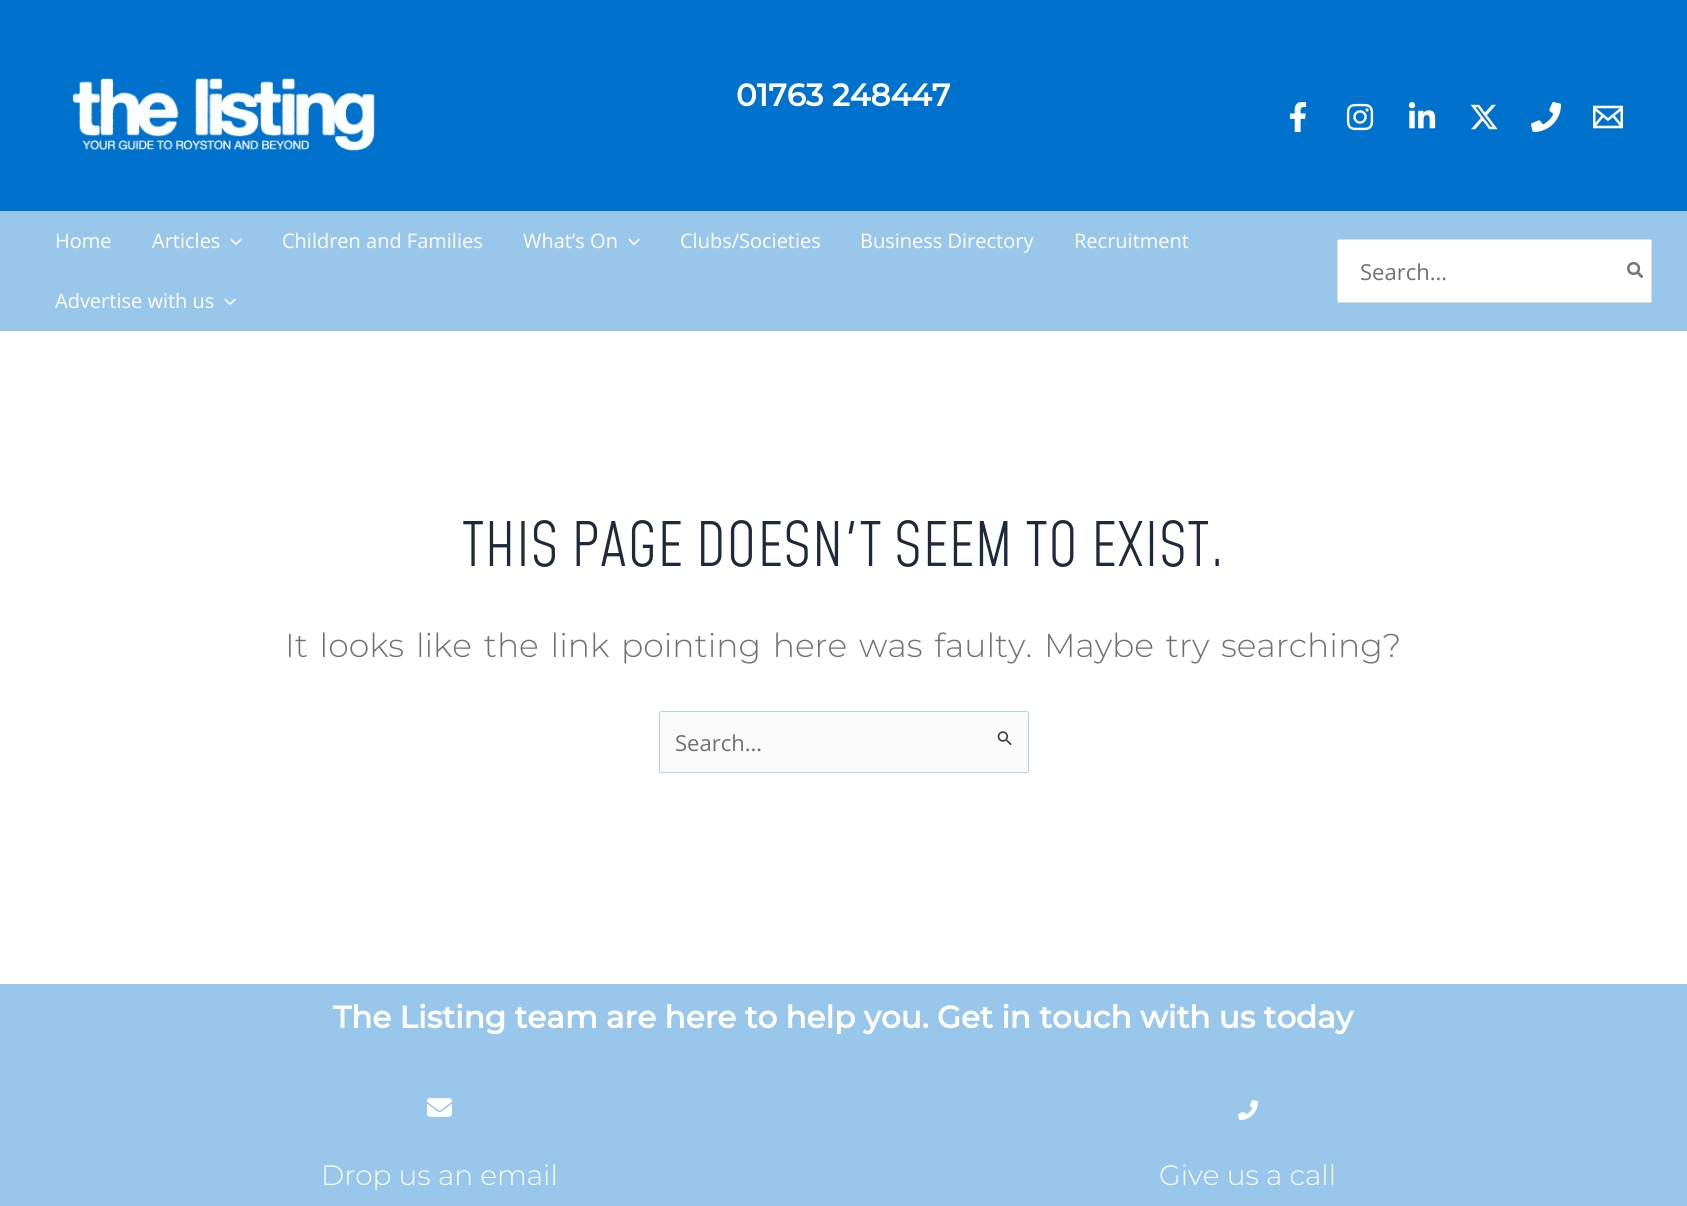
#include <cairo/cairo.h>
#include <math.h>
#include <stddef.h>

static cairo_t *cr;

static void use_color(int r, int g, int b) {
  cairo_set_source_rgb(cr, r / 255.0, g / 255.0, b / 255.0);
}

static void text(double x, double y, const char *s, const char *family, double size, int italic, int bold, int r, int g, int b) {
  cairo_select_font_face(cr, family, italic ? CAIRO_FONT_SLANT_ITALIC : CAIRO_FONT_SLANT_NORMAL,
    bold ? CAIRO_FONT_WEIGHT_BOLD : CAIRO_FONT_WEIGHT_NORMAL);
  cairo_set_font_size(cr, size);
  use_color(r, g, b);
  cairo_move_to(cr, x, y);
  cairo_show_text(cr, s);
}

static void spaced_text(double x, double y, const char *s, double letter, double word) {
  cairo_move_to(cr, x, y);
  while (*s) {
    char ch[5] = {0};
    int n = 0;
    do ch[n++] = *s++; while ((*s & 0xC0) == 0x80);
    cairo_show_text(cr, ch);
    cairo_rel_move_to(cr, letter + word * (*ch == ' '), 0);
  }
}

static void box(double x, double y, double w, double h, int r, int g, int b) {
  use_color(r, g, b);
  cairo_rectangle(cr, x, y, w, h);
  cairo_fill(cr);
}

static void round_rect(double x, double y, double w, double h, double r) {
  cairo_new_sub_path(cr);
  cairo_arc(cr, x + w - r, y + h - r, r, 0, M_PI / 2);
  cairo_arc(cr, x + r, y + h - r, r, M_PI / 2, M_PI);
  cairo_arc(cr, x + r, y + r, r, M_PI, 1.5 * M_PI);
  cairo_arc(cr, x + w - r, y + r, r, 1.5 * M_PI, 2 * M_PI);
  cairo_close_path(cr);
}

static void picture(const char *path, double x, double y, double w, double h) {
  cairo_surface_t *image = cairo_image_surface_create_from_png(path);
  cairo_save(cr);
  cairo_set_source_surface(cr, image, x, y);
  cairo_rectangle(cr, x, y, w, h);
  cairo_fill(cr);
  cairo_restore(cr);
  cairo_surface_destroy(image);
}

static void draw(void) {
  use_color(255, 255, 255);
  cairo_paint(cr);
  box(0, 0, 1687, 211, 0, 114, 206);
  picture("img_01.png", 72, 78, 304, 74);
  picture("img_02.png", 1289, 102, 18, 30);
  picture("img_03.png", 1346, 103, 28, 28);
  picture("img_04.png", 1408, 102, 28, 27);
  picture("img_05.png", 1470, 104, 28, 26);
  picture("img_06.png", 1531, 102, 30, 30);
  picture("img_07.png", 1593, 105, 30, 24);
  box(0, 211, 1687, 120, 153, 198, 235);
  picture("img_08.png", 230, 238, 12, 8);
  picture("img_08.png", 628, 238, 12, 8);
  picture("img_08.png", 224, 298, 12, 8);
  use_color(255, 255, 255);
  round_rect(1337.5, 239.5, 314, 63, 1.5);
  cairo_fill_preserve(cr);
  use_color(221, 221, 221);
  cairo_set_line_width(cr, 1);
  cairo_stroke(cr);
  picture("img_09.png", 1627, 261, 16, 17);
  use_color(250, 250, 250);
  round_rect(659.5, 711.5, 369, 61, 1.5);
  cairo_fill_preserve(cr);
  use_color(178, 212, 240);
  cairo_stroke(cr);
  picture("img_10.png", 997, 731, 15, 15);
  box(0, 984, 1687, 222, 153, 198, 235);
  picture("img_11.png", 427, 1098, 25, 19);
  picture("img_12.png", 1238, 1100, 20, 20);
  text(736, 106, "01763 248447", "Montserrat", 31, 0, 1, 255, 255, 255);
  text(55, 248, "Home", "Open Sans", 20, 0, 0, 255, 255, 255);
  text(152, 248, "Articles", "Open Sans", 20, 0, 0, 255, 255, 255);
  text(282, 248, "Children and Families", "Open Sans", 20, 0, 0, 255, 255, 255);
  text(523, 248, "What’s On", "Open Sans", 20, 0, 0, 255, 255, 255);
  text(680, 248, "Clubs/Societies", "Open Sans", 20, 0, 0, 255, 255, 255);
  text(860, 248, "Business Directory", "Open Sans", 20, 0, 0, 255, 255, 255);
  text(1074, 248, "Recruitment", "Open Sans", 20, 0, 0, 255, 255, 255);
  text(55, 308, "Advertise with us", "Open Sans", 20, 0, 0, 255, 255, 255);
  text(1360, 280, "Search...", "Open Sans", 22, 0, 0, 112, 113, 115);
  text(462, 566, "THIS PAGE DOESN'T SEEM TO EXIST.", "Mohave Light", 60, 0, 0, 30, 41, 59);
  cairo_select_font_face(cr, "Montserrat Light", CAIRO_FONT_SLANT_NORMAL, CAIRO_FONT_WEIGHT_NORMAL);
  cairo_set_font_size(cr, 33);
  use_color(112, 113, 115);
  spaced_text(285, 657, "It looks like the link pointing here was faulty. Maybe try searching?", 0, 3.25);
  text(675, 751, "Search...", "Open Sans", 22, 0, 0, 112, 113, 115);
  text(333, 1028, "The Listing team are here to help you. Get in touch with us today", "Montserrat", 31, 0, 1, 255, 255, 255);
  text(321, 1185, "Drop us an email", "Montserrat Light", 28, 0, 0, 255, 255, 255);
  text(1159, 1185, "Give us a call", "Montserrat Light", 28, 0, 0, 255, 255, 255);
}

int main(void) {
  cairo_surface_t *surface = cairo_image_surface_create(CAIRO_FORMAT_RGB24, 1687, 1206);
  cr = cairo_create(surface);
  cairo_font_options_t *options = cairo_font_options_create();
  cairo_font_options_set_hint_metrics(options, CAIRO_HINT_METRICS_OFF);
  cairo_font_options_set_hint_style(options, CAIRO_HINT_STYLE_NONE);
  cairo_set_font_options(cr, options);
  cairo_set_miter_limit(cr, 4);
  draw();
  cairo_surface_write_to_png(surface, "out.png");
  cairo_font_options_destroy(options);
  cairo_destroy(cr);
  cairo_surface_destroy(surface);
  return 0;
}
